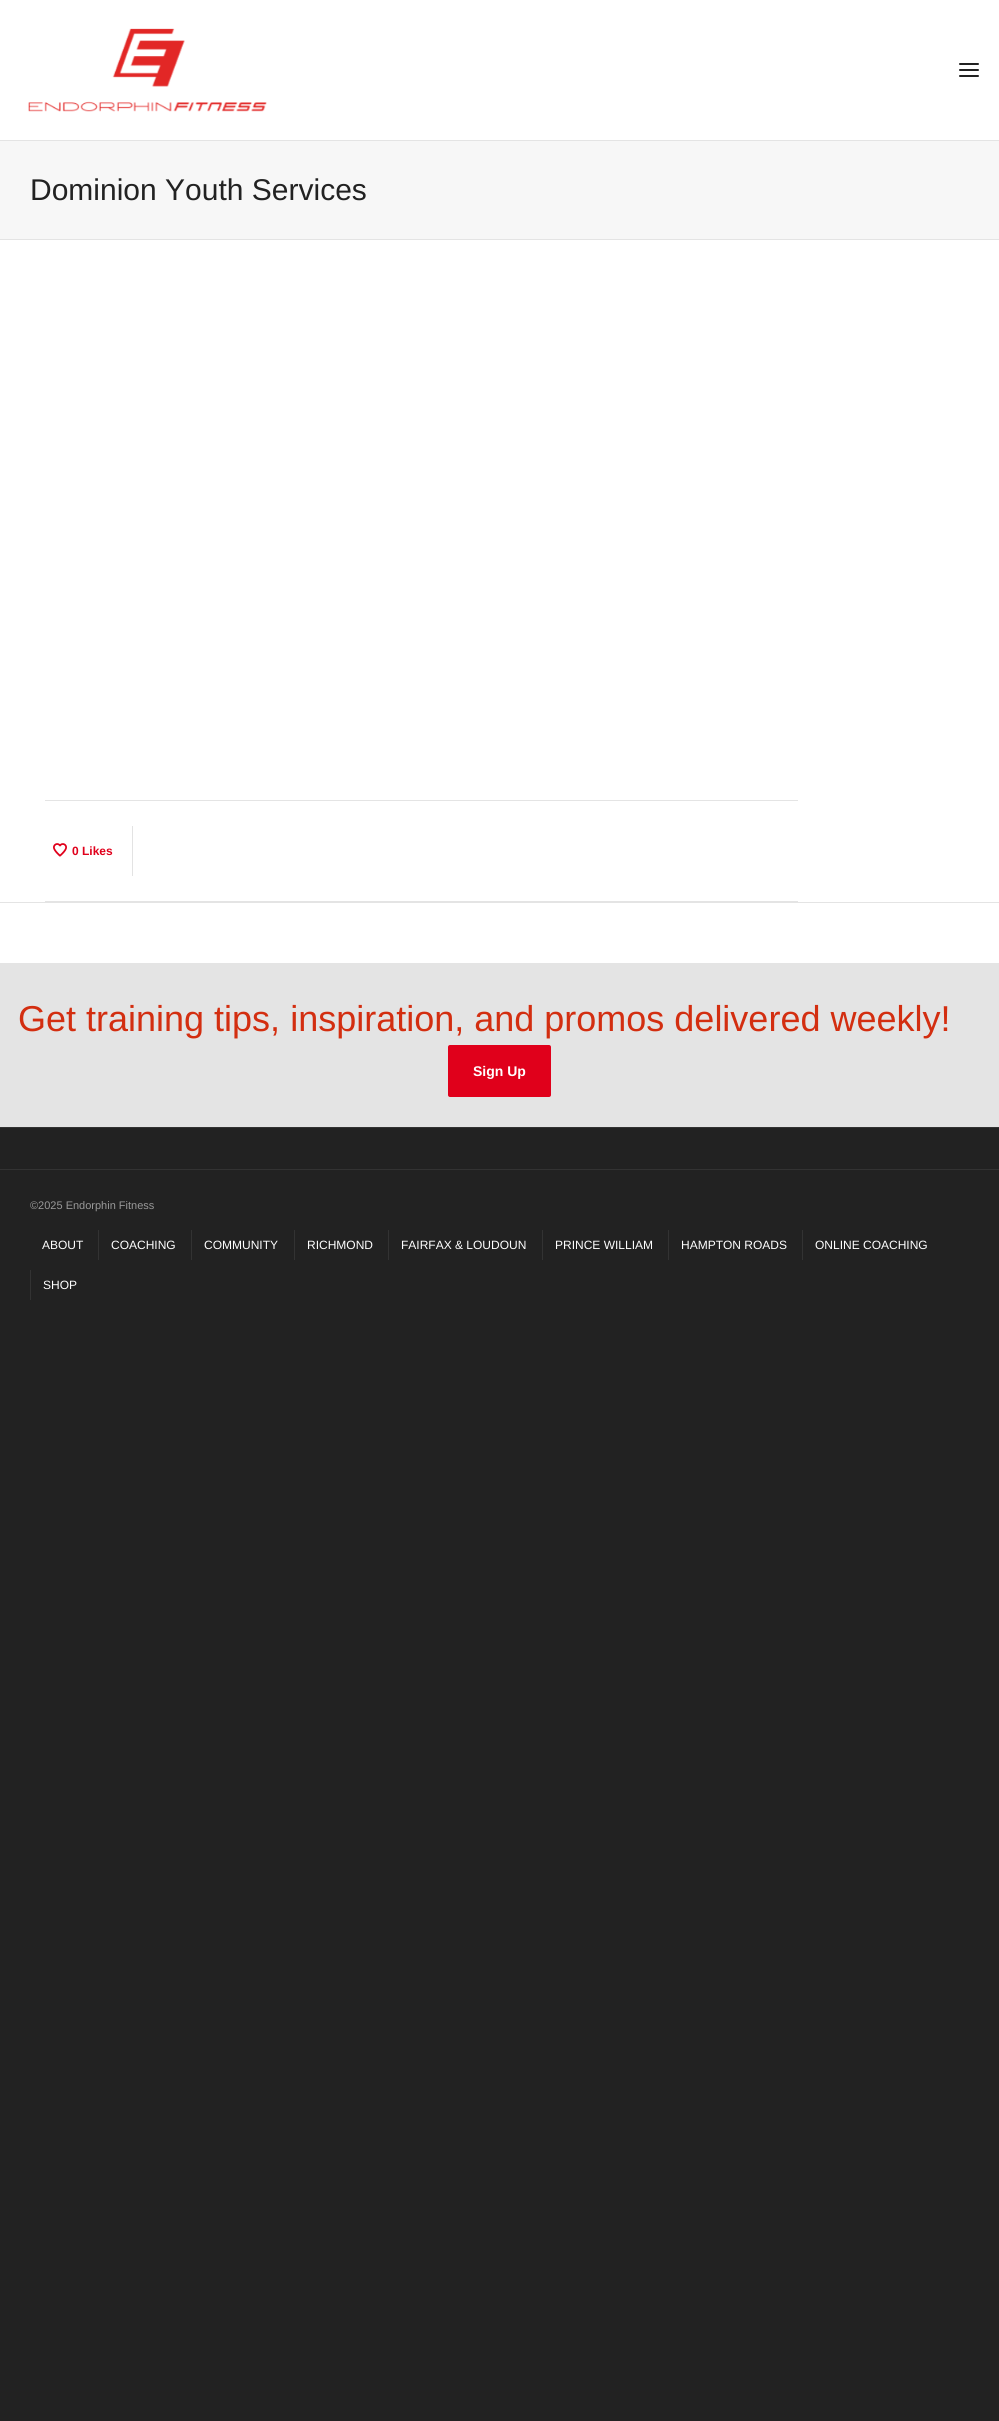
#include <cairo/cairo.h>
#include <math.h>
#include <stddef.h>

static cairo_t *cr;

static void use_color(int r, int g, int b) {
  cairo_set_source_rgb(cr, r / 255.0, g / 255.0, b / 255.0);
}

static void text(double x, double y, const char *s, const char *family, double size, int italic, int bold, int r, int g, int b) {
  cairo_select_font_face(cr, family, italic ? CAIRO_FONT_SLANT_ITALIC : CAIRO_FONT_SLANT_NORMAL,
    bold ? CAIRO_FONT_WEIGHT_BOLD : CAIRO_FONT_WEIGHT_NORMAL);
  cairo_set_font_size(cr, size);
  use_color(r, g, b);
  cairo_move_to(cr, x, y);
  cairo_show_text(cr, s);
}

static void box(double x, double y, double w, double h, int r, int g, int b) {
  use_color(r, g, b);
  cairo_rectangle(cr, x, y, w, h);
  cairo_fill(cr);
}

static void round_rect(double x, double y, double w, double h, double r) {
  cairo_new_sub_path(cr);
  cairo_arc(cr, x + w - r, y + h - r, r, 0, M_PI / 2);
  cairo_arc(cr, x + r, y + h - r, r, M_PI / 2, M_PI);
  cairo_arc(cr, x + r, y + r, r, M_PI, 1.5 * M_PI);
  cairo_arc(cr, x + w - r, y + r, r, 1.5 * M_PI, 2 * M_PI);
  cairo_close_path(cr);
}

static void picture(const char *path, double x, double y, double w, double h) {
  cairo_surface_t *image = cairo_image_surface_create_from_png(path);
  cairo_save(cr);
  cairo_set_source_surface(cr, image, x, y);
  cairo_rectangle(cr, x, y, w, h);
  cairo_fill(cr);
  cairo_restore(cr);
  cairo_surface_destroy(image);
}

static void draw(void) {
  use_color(34, 34, 34);
  cairo_paint(cr);
  box(0, 0, 999, 140, 255, 255, 255);
  box(0, 140, 999, 1, 228, 228, 228);
  picture("img_01.png", 28, 28, 239, 84);
  use_color(34, 34, 34);
  round_rect(959, 69, 20, 2, 1);
  cairo_fill(cr);
  round_rect(959, 63, 20, 2, 1);
  cairo_fill(cr);
  round_rect(959, 75, 20, 2, 1);
  cairo_fill(cr);
  box(0, 141, 999, 98, 247, 247, 247);
  box(0, 239, 999, 1, 228, 228, 228);
  box(0, 240, 999, 723, 255, 255, 255);
  box(45, 800, 753, 1, 228, 228, 228);
  box(45, 901, 753, 1, 228, 228, 228);
  picture("img_02.png", 53, 843, 14, 14);
  box(132, 826, 1, 50, 227, 227, 227);
  box(0, 902, 999, 1, 228, 228, 228);
  box(0, 963, 999, 164, 228, 228, 228);
  use_color(224, 0, 27);
  round_rect(448, 1045, 103, 52, 2);
  cairo_fill(cr);
  box(0, 1127, 999, 1, 51, 51, 51);
  box(0, 1169, 999, 1, 51, 51, 51);
  box(98, 1230, 1, 30, 51, 51, 51);
  box(191, 1230, 1, 30, 51, 51, 51);
  box(294, 1230, 1, 30, 51, 51, 51);
  box(388, 1230, 1, 30, 51, 51, 51);
  box(542, 1230, 1, 30, 51, 51, 51);
  box(668, 1230, 1, 30, 51, 51, 51);
  box(802, 1230, 1, 30, 51, 51, 51);
  box(30, 1270, 1, 30, 51, 51, 51);
  text(30, 200, "Dominion Youth Services", "Liberation Sans", 30, 0, 0, 34, 34, 34);
  text(72, 855, "0 Likes", "Liberation Sans", 12, 0, 1, 224, 0, 27);
  text(18, 1031, "Get training tips, inspiration, and promos delivered weekly!", "Liberation Sans", 36, 0, 0, 211, 46, 16);
  text(473, 1076, "Sign Up", "Liberation Sans", 14, 0, 1, 255, 255, 255);
  text(30, 1209, "©2025 Endorphin Fitness", "Liberation Sans", 11, 0, 0, 153, 153, 153);
  text(42, 1249, "ABOUT", "Liberation Sans", 12, 0, 0, 255, 255, 255);
  text(111, 1249, "COACHING", "Liberation Sans", 12, 0, 0, 255, 255, 255);
  text(204, 1249, "COMMUNITY", "Liberation Sans", 12, 0, 0, 255, 255, 255);
  text(307, 1249, "RICHMOND", "Liberation Sans", 12, 0, 0, 255, 255, 255);
  text(401, 1249, "FAIRFAX & LOUDOUN", "Liberation Sans", 12, 0, 0, 255, 255, 255);
  text(555, 1249, "PRINCE WILLIAM", "Liberation Sans", 12, 0, 0, 255, 255, 255);
  text(681, 1249, "HAMPTON ROADS", "Liberation Sans", 12, 0, 0, 255, 255, 255);
  text(815, 1249, "ONLINE COACHING", "Liberation Sans", 12, 0, 0, 255, 255, 255);
  text(43, 1289, "SHOP", "Liberation Sans", 12, 0, 0, 255, 255, 255);
}

int main(void) {
  cairo_surface_t *surface = cairo_image_surface_create(CAIRO_FORMAT_RGB24, 999, 2421);
  cr = cairo_create(surface);
  cairo_font_options_t *options = cairo_font_options_create();
  cairo_font_options_set_hint_metrics(options, CAIRO_HINT_METRICS_OFF);
  cairo_font_options_set_hint_style(options, CAIRO_HINT_STYLE_NONE);
  cairo_set_font_options(cr, options);
  cairo_set_miter_limit(cr, 4);
  draw();
  cairo_surface_write_to_png(surface, "out.png");
  cairo_font_options_destroy(options);
  cairo_destroy(cr);
  cairo_surface_destroy(surface);
  return 0;
}
